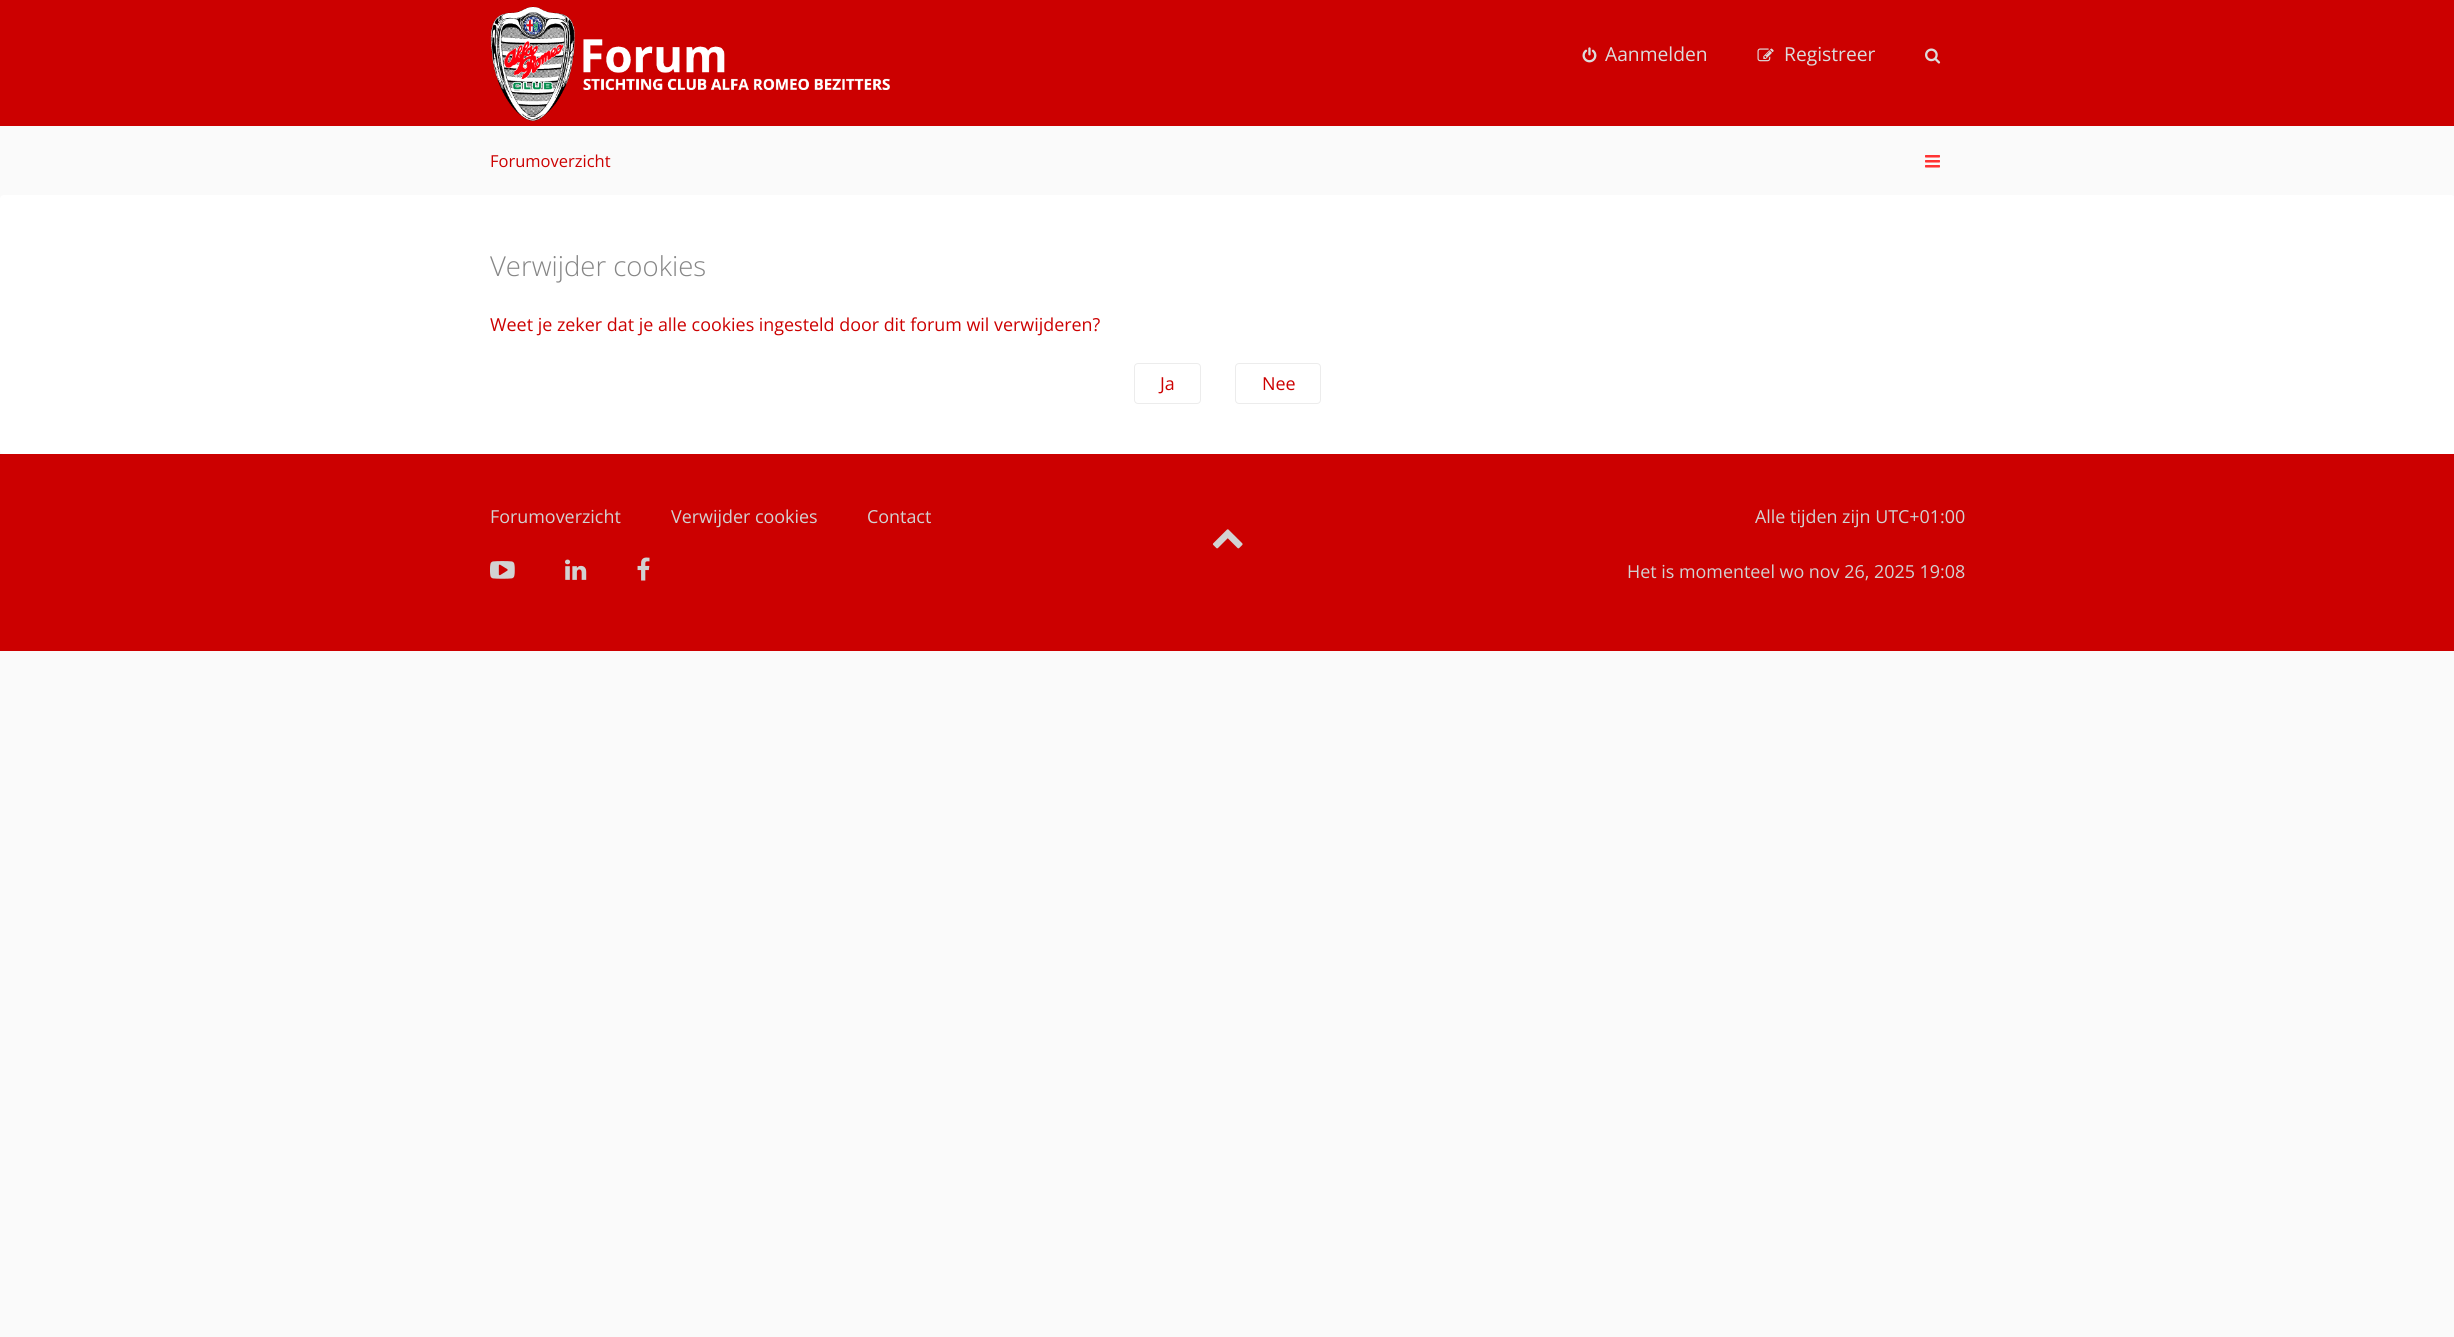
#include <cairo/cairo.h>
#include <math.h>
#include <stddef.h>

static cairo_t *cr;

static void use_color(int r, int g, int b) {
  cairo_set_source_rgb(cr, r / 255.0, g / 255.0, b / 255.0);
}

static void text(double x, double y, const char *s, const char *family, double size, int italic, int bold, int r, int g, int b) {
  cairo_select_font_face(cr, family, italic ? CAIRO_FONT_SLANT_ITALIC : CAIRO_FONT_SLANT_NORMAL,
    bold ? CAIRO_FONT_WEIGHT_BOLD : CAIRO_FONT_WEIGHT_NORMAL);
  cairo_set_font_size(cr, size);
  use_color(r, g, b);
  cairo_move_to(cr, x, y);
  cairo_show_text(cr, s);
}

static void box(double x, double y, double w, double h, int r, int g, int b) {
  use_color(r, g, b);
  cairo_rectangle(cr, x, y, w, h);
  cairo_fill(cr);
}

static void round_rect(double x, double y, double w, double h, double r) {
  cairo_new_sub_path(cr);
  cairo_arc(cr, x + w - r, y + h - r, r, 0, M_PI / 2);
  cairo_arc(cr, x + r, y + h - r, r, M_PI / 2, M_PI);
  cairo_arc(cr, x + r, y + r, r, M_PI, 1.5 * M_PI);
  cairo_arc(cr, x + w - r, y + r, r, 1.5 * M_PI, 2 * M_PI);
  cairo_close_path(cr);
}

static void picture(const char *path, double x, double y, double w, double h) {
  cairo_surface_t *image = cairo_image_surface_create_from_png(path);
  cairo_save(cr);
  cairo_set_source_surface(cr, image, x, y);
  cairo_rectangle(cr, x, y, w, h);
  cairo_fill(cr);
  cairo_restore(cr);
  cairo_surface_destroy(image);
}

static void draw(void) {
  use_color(250, 250, 250);
  cairo_paint(cr);
  box(0, 0, 2454, 126, 204, 0, 0);
  picture("img_01.png", 490, 6, 400, 116);
  picture("img_02.png", 1582, 47, 15, 16);
  picture("img_03.png", 1757, 48, 17, 14);
  picture("img_04.png", 1925, 48, 16, 16);
  picture("img_05.png", 1925, 155, 15, 13);
  use_color(255, 255, 255);
  round_rect(0, 195, 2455, 259, 4);
  cairo_fill(cr);
  round_rect(1134.5, 363.5, 66, 40, 3.5);
  use_color(236, 236, 236);
  cairo_set_line_width(cr, 1);
  cairo_stroke(cr);
  round_rect(1235.5, 363.5, 85, 40, 3.5);
  cairo_stroke(cr);
  box(0, 454, 2454, 197, 204, 0, 0);
  picture("img_06.png", 490, 561, 25, 18);
  picture("img_07.png", 565, 559, 22, 21);
  picture("img_08.png", 637, 557, 13, 24);
  picture("img_09.png", 1212, 529, 31, 20);
  text(1605, 61, "Aanmelden", "Open Sans", 19.25, 0, 0, 220, 220, 220);
  text(1784, 61, "Registreer", "Open Sans", 19.25, 0, 0, 220, 220, 220);
  text(490, 167, "Forumoverzicht", "Open Sans", 16.5, 0, 0, 204, 0, 0);
  text(490, 276, "Verwijder cookies", "Open Sans Light", 27.5, 0, 0, 134, 134, 134);
  text(490, 331, "Weet je zeker dat je alle cookies ingesteld door dit forum wil verwijderen?", "Open Sans", 17.9, 0, 0, 204, 0, 0);
  text(1160, 390, "Ja", "Open Sans", 17.9, 0, 0, 204, 0, 0);
  text(1262, 390, "Nee", "Open Sans", 17.9, 0, 0, 204, 0, 0);
  text(490, 523, "Forumoverzicht", "Open Sans", 17.9, 0, 0, 210, 210, 210);
  text(671, 523, "Verwijder cookies", "Open Sans", 17.9, 0, 0, 210, 210, 210);
  text(867, 523, "Contact", "Open Sans", 17.9, 0, 0, 210, 210, 210);
  text(1755, 523, "Alle tijden zijn UTC+01:00", "Open Sans", 17.9, 0, 0, 210, 210, 210);
  text(1627, 578, "Het is momenteel wo nov 26, 2025 19:08", "Open Sans", 17.9, 0, 0, 210, 210, 210);
}

int main(void) {
  cairo_surface_t *surface = cairo_image_surface_create(CAIRO_FORMAT_RGB24, 2454, 1337);
  cr = cairo_create(surface);
  cairo_font_options_t *options = cairo_font_options_create();
  cairo_font_options_set_hint_metrics(options, CAIRO_HINT_METRICS_OFF);
  cairo_font_options_set_hint_style(options, CAIRO_HINT_STYLE_NONE);
  cairo_set_font_options(cr, options);
  cairo_set_miter_limit(cr, 4);
  draw();
  cairo_surface_write_to_png(surface, "out.png");
  cairo_font_options_destroy(options);
  cairo_destroy(cr);
  cairo_surface_destroy(surface);
  return 0;
}
